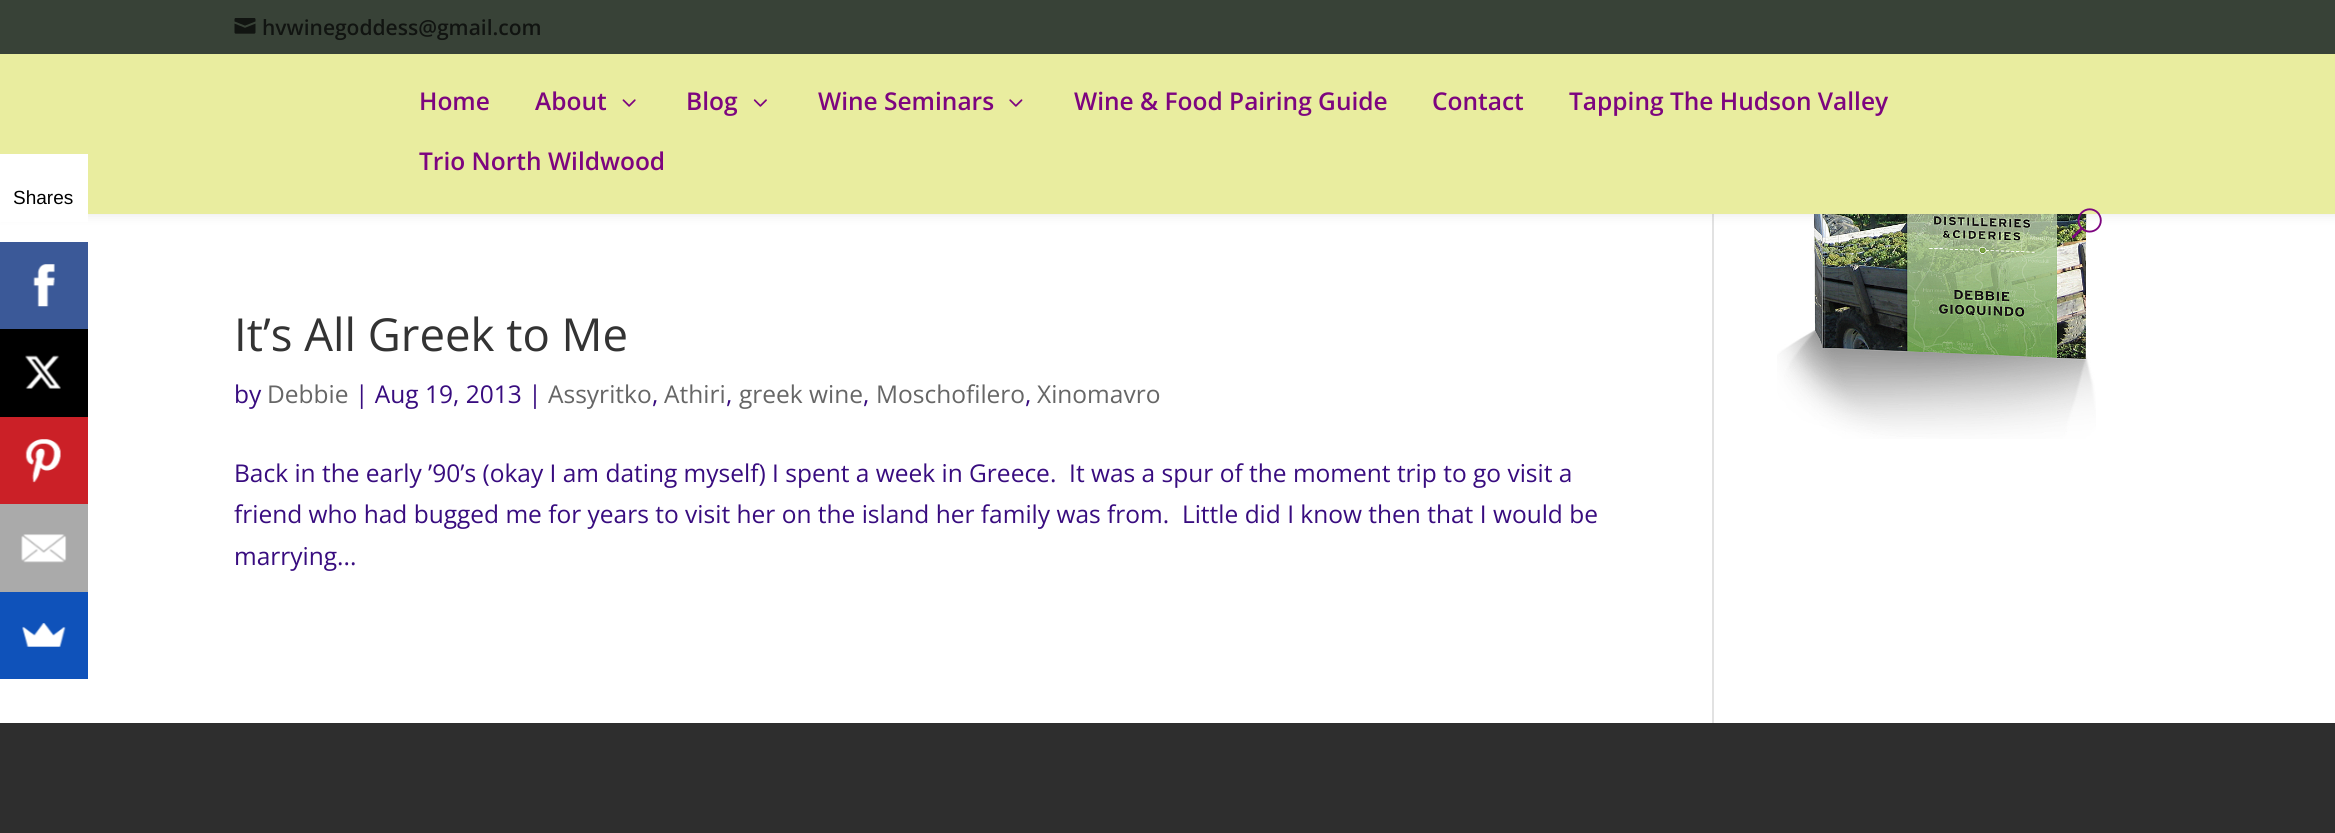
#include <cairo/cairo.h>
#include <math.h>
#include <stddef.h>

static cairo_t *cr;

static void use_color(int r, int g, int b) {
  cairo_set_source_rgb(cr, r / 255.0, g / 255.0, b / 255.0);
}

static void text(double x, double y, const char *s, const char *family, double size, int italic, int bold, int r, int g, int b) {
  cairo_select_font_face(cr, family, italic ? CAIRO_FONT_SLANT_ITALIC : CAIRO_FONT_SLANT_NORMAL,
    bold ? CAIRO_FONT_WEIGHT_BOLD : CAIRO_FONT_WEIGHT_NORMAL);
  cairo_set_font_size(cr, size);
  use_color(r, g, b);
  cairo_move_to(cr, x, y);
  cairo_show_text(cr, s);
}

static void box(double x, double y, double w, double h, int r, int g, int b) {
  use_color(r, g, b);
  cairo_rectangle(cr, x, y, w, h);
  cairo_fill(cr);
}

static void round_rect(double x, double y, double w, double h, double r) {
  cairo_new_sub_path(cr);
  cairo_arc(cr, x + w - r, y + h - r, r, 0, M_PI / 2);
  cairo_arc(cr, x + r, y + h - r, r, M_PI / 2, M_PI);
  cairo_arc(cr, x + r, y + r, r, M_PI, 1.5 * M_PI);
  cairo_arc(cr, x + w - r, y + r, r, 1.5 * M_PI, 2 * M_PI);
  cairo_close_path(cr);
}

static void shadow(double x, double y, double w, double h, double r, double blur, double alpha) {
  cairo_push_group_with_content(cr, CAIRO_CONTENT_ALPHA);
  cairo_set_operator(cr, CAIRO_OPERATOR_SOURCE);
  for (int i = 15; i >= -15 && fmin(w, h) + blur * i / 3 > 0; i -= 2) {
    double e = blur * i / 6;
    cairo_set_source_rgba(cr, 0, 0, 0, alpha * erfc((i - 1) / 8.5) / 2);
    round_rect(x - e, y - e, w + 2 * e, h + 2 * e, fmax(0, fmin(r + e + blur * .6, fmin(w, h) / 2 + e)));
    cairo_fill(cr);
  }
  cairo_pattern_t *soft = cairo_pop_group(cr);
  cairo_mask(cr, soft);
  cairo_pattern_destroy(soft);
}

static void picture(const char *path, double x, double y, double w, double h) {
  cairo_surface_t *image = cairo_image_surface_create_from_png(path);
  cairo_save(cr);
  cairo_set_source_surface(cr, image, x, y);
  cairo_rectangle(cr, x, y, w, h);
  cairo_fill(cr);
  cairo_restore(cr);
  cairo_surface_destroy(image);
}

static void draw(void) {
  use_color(255, 255, 255);
  cairo_paint(cr);
  picture("img_11.png", 1777, 214, 319, 225);
  box(1712, 214, 2, 509, 226, 226, 226);
  use_color(0, 0, 0);
  shadow(0, 54, 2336, 160, 0, 6, 0.1);
  box(0, 54, 2335, 160, 233, 237, 159);
  box(0, 154, 88, 68, 255, 255, 255);
  box(0, 242, 88, 87, 59, 89, 152);
  picture("img_01.png", 33, 264, 22, 43);
  box(0, 329, 88, 88, 0, 0, 0);
  picture("img_02.png", 25, 355, 36, 34);
  box(0, 417, 88, 87, 203, 32, 39);
  picture("img_03.png", 25, 439, 36, 44);
  box(0, 504, 88, 88, 170, 170, 170);
  picture("img_04.png", 21, 534, 46, 29);
  box(0, 592, 88, 87, 15, 82, 186);
  picture("img_05.png", 22, 623, 44, 24);
  box(0, 0, 2335, 54, 56, 66, 55);
  picture("img_06.png", 234, 18, 22, 16);
  picture("img_07.png", 622, 99, 14, 8);
  picture("img_08.png", 753, 99, 14, 8);
  picture("img_09.png", 1009, 99, 14, 8);
  picture("img_10.png", 2071, 208, 31, 31);
  box(0, 723, 2335, 110, 46, 46, 46);
  text(13, 204, "Shares", "Liberation Sans", 19, 0, 0, 0, 0, 0);
  text(262, 35, "hvwinegoddess@gmail.com", "Open Sans SemiBold", 21, 0, 0, 17, 20, 17);
  text(419, 110, "Home", "Open Sans SemiBold", 24.5, 0, 0, 125, 5, 127);
  text(535, 110, "About", "Open Sans SemiBold", 24.5, 0, 0, 125, 5, 127);
  text(686, 110, "Blog", "Open Sans SemiBold", 24.5, 0, 0, 125, 5, 127);
  text(818, 110, "Wine Seminars", "Open Sans SemiBold", 24.5, 0, 0, 125, 5, 127);
  text(1074, 110, "Wine & Food Pairing Guide", "Open Sans SemiBold", 24.5, 0, 0, 125, 5, 127);
  text(1432, 110, "Contact", "Open Sans SemiBold", 24.5, 0, 0, 125, 5, 127);
  text(1569, 110, "Tapping The Hudson Valley", "Open Sans SemiBold", 24.5, 0, 0, 125, 5, 127);
  text(419, 170, "Trio North Wildwood", "Open Sans SemiBold", 24.5, 0, 0, 125, 5, 127);
  text(234, 351, "It’s All Greek to Me", "Open Sans", 45.5, 0, 0, 51, 51, 51);
  text(234, 403, "by", "Open Sans", 24.5, 0, 0, 56, 12, 127);
  text(267, 403, "Debbie", "Open Sans", 24.5, 0, 0, 102, 102, 102);
  text(355, 403, "| Aug 19, 2013 |", "Open Sans", 24.5, 0, 0, 56, 12, 127);
  text(548, 403, "Assyritko", "Open Sans", 24.5, 0, 0, 102, 102, 102);
  text(652, 403, ",", "Open Sans", 24.5, 0, 0, 56, 12, 127);
  text(664, 403, "Athiri", "Open Sans", 24.5, 0, 0, 102, 102, 102);
  text(726, 403, ",", "Open Sans", 24.5, 0, 0, 56, 12, 127);
  text(739, 403, "greek wine", "Open Sans", 24.5, 0, 0, 102, 102, 102);
  text(863, 403, ",", "Open Sans", 24.5, 0, 0, 56, 12, 127);
  text(876, 403, "Moschofilero", "Open Sans", 24.5, 0, 0, 102, 102, 102);
  text(1025, 403, ",", "Open Sans", 24.5, 0, 0, 56, 12, 127);
  text(1037, 403, "Xinomavro", "Open Sans", 24.5, 0, 0, 102, 102, 102);
  text(234, 482, "Back in the early ’90’s (okay I am dating myself) I spent a week in Greece.  It was a spur of the moment trip to go visit a", "Open Sans", 24.5, 0, 0, 56, 12, 127);
  text(234, 523, "friend who had bugged me for years to visit her on the island her family was from.  Little did I know then that I would be", "Open Sans", 24.5, 0, 0, 56, 12, 127);
  text(234, 565, "marrying...", "Open Sans", 24.5, 0, 0, 56, 12, 127);
}

int main(void) {
  cairo_surface_t *surface = cairo_image_surface_create(CAIRO_FORMAT_RGB24, 2335, 833);
  cr = cairo_create(surface);
  cairo_font_options_t *options = cairo_font_options_create();
  cairo_font_options_set_hint_metrics(options, CAIRO_HINT_METRICS_OFF);
  cairo_font_options_set_hint_style(options, CAIRO_HINT_STYLE_NONE);
  cairo_set_font_options(cr, options);
  cairo_set_miter_limit(cr, 4);
  draw();
  cairo_surface_write_to_png(surface, "out.png");
  cairo_font_options_destroy(options);
  cairo_destroy(cr);
  cairo_surface_destroy(surface);
  return 0;
}
